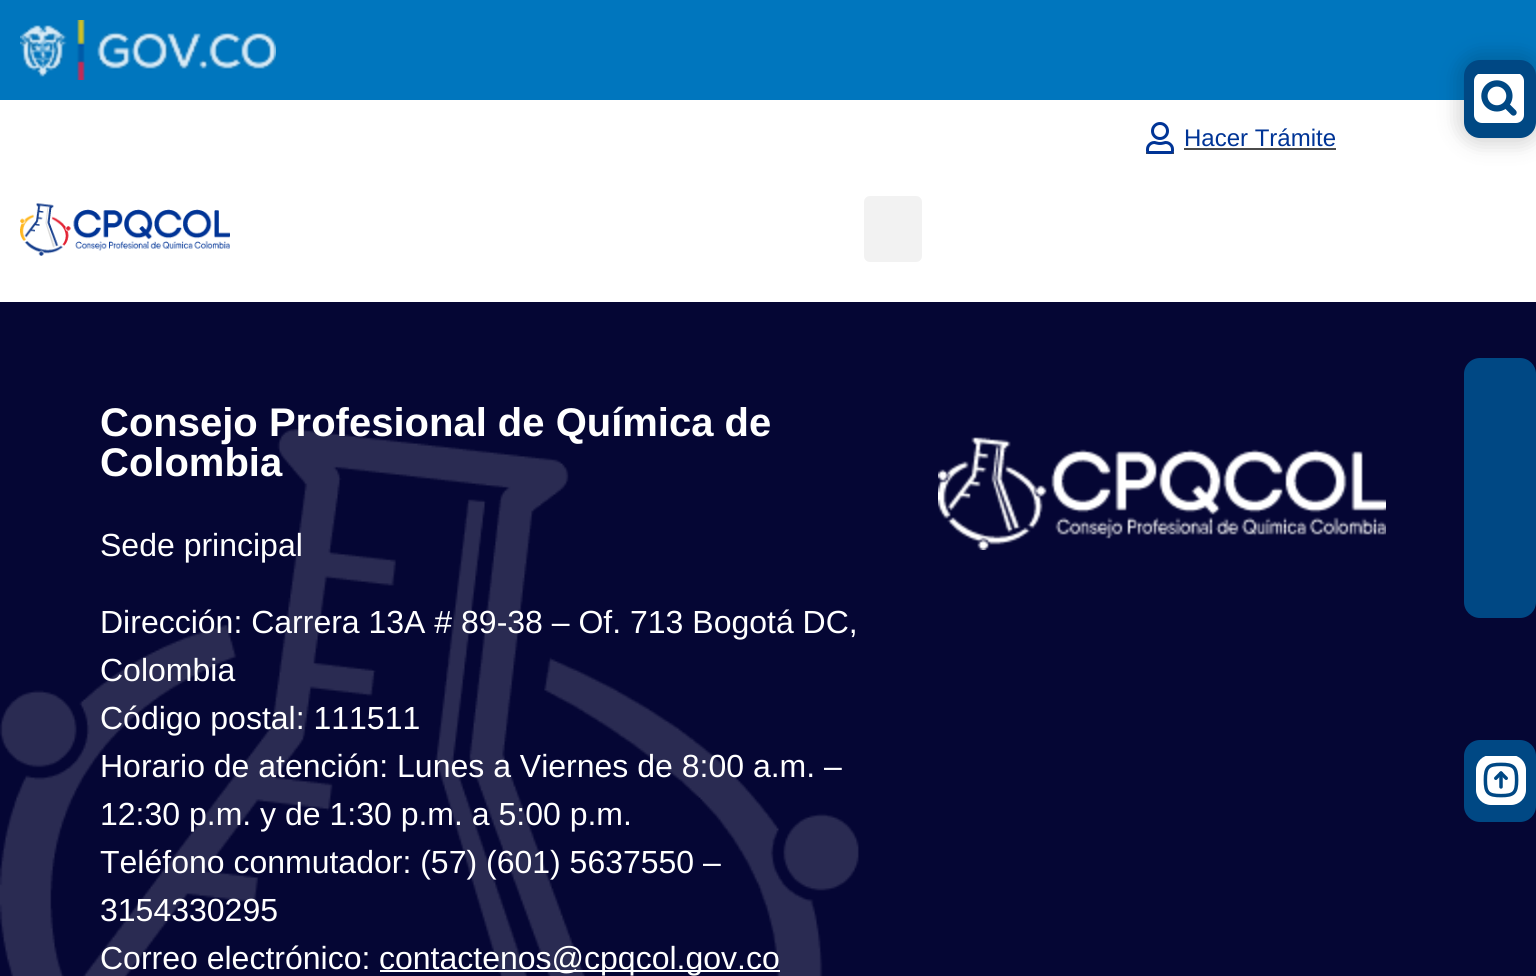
#include <cairo/cairo.h>
#include <math.h>
#include <stddef.h>

static cairo_t *cr;

static void use_color(int r, int g, int b) {
  cairo_set_source_rgb(cr, r / 255.0, g / 255.0, b / 255.0);
}

static void text(double x, double y, const char *s, const char *family, double size, int italic, int bold, int r, int g, int b) {
  cairo_select_font_face(cr, family, italic ? CAIRO_FONT_SLANT_ITALIC : CAIRO_FONT_SLANT_NORMAL,
    bold ? CAIRO_FONT_WEIGHT_BOLD : CAIRO_FONT_WEIGHT_NORMAL);
  cairo_set_font_size(cr, size);
  use_color(r, g, b);
  cairo_move_to(cr, x, y);
  cairo_show_text(cr, s);
}

static void box(double x, double y, double w, double h, int r, int g, int b) {
  use_color(r, g, b);
  cairo_rectangle(cr, x, y, w, h);
  cairo_fill(cr);
}

static void round_rect(double x, double y, double w, double h, double r) {
  cairo_new_sub_path(cr);
  cairo_arc(cr, x + w - r, y + h - r, r, 0, M_PI / 2);
  cairo_arc(cr, x + r, y + h - r, r, M_PI / 2, M_PI);
  cairo_arc(cr, x + r, y + r, r, M_PI, 1.5 * M_PI);
  cairo_arc(cr, x + w - r, y + r, r, 1.5 * M_PI, 2 * M_PI);
  cairo_close_path(cr);
}

static void shadow(double x, double y, double w, double h, double r, double blur, double alpha) {
  cairo_push_group_with_content(cr, CAIRO_CONTENT_ALPHA);
  cairo_set_operator(cr, CAIRO_OPERATOR_SOURCE);
  for (int i = 15; i >= -15 && fmin(w, h) + blur * i / 3 > 0; i -= 2) {
    double e = blur * i / 6;
    cairo_set_source_rgba(cr, 0, 0, 0, alpha * erfc((i - 1) / 8.5) / 2);
    round_rect(x - e, y - e, w + 2 * e, h + 2 * e, fmax(0, fmin(r + e + blur * .6, fmin(w, h) / 2 + e)));
    cairo_fill(cr);
  }
  cairo_pattern_t *soft = cairo_pop_group(cr);
  cairo_mask(cr, soft);
  cairo_pattern_destroy(soft);
}

static void picture(const char *path, double x, double y, double w, double h) {
  cairo_surface_t *image = cairo_image_surface_create_from_png(path);
  cairo_save(cr);
  cairo_set_source_surface(cr, image, x, y);
  cairo_rectangle(cr, x, y, w, h);
  cairo_fill(cr);
  cairo_restore(cr);
  cairo_surface_destroy(image);
}

static void draw(void) {
  use_color(255, 255, 255);
  cairo_paint(cr);
  box(0, 0, 1536, 100, 0, 118, 190);
  picture("img_01.png", 20, 20, 256, 60);
  box(1146, 152, 28, 2, 75, 75, 75);
  picture("img_02.png", 1146, 122, 28, 32);
  box(1184, 148, 152, 2, 75, 75, 75);
  use_color(0, 0, 0);
  shadow(1458, 54, 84, 90, 22, 10, 0.17);
  use_color(0, 72, 132);
  round_rect(1464, 60, 72, 78, 16);
  cairo_fill(cr);
  picture("img_03.png", 1474, 74, 50, 49);
  box(0, 302, 1536, 674, 5, 6, 52);
  use_color(0, 72, 132);
  round_rect(1464, 358, 72, 260, 16);
  cairo_fill(cr);
  round_rect(1464, 740, 72, 82, 16);
  cairo_fill(cr);
  picture("img_04.png", 1476, 756, 50, 49);
  picture("img_05.png", 20, 203, 210, 53);
  use_color(242, 242, 242);
  round_rect(864, 196, 58, 66, 6);
  cairo_fill(cr);
  picture("img_06.png", 0, 429, 859, 547);
  box(380, 970, 400, 2, 255, 255, 255);
  picture("img_07.png", 938, 437, 448, 113);
  text(1184, 146, "Hacer Trámite", "Liberation Sans", 24, 0, 0, 0, 52, 150);
  text(100, 436, "Consejo Profesional de Química de", "Liberation Sans", 40, 0, 1, 255, 255, 255);
  text(100, 476, "Colombia", "Liberation Sans", 40, 0, 1, 255, 255, 255);
  text(100, 556, "Sede principal", "Liberation Sans", 32, 0, 0, 255, 255, 255);
  text(100, 633, "Dirección: Carrera 13A # 89-38 – Of. 713 Bogotá DC,", "Liberation Sans", 32, 0, 0, 255, 255, 255);
  text(100, 681, "Colombia", "Liberation Sans", 32, 0, 0, 255, 255, 255);
  text(100, 729, "Código postal: 111511", "Liberation Sans", 32, 0, 0, 255, 255, 255);
  text(100, 777, "Horario de atención: Lunes a Viernes de 8:00 a.m. –", "Liberation Sans", 32, 0, 0, 255, 255, 255);
  text(100, 825, "12:30 p.m. y de 1:30 p.m. a 5:00 p.m.", "Liberation Sans", 32, 0, 0, 255, 255, 255);
  text(100, 873, "Teléfono conmutador: (57) (601) 5637550 –", "Liberation Sans", 32, 0, 0, 255, 255, 255);
  text(100, 921, "3154330295", "Liberation Sans", 32, 0, 0, 255, 255, 255);
  text(100, 969, "Correo electrónico:", "Liberation Sans", 32, 0, 0, 255, 255, 255);
  text(379, 969, "contactenos@cpqcol.gov.co", "Liberation Sans", 32, 0, 0, 255, 255, 255);
}

int main(void) {
  cairo_surface_t *surface = cairo_image_surface_create(CAIRO_FORMAT_RGB24, 1536, 976);
  cr = cairo_create(surface);
  cairo_font_options_t *options = cairo_font_options_create();
  cairo_font_options_set_hint_metrics(options, CAIRO_HINT_METRICS_OFF);
  cairo_font_options_set_hint_style(options, CAIRO_HINT_STYLE_NONE);
  cairo_set_font_options(cr, options);
  cairo_set_miter_limit(cr, 4);
  draw();
  cairo_surface_write_to_png(surface, "out.png");
  cairo_font_options_destroy(options);
  cairo_destroy(cr);
  cairo_surface_destroy(surface);
  return 0;
}
